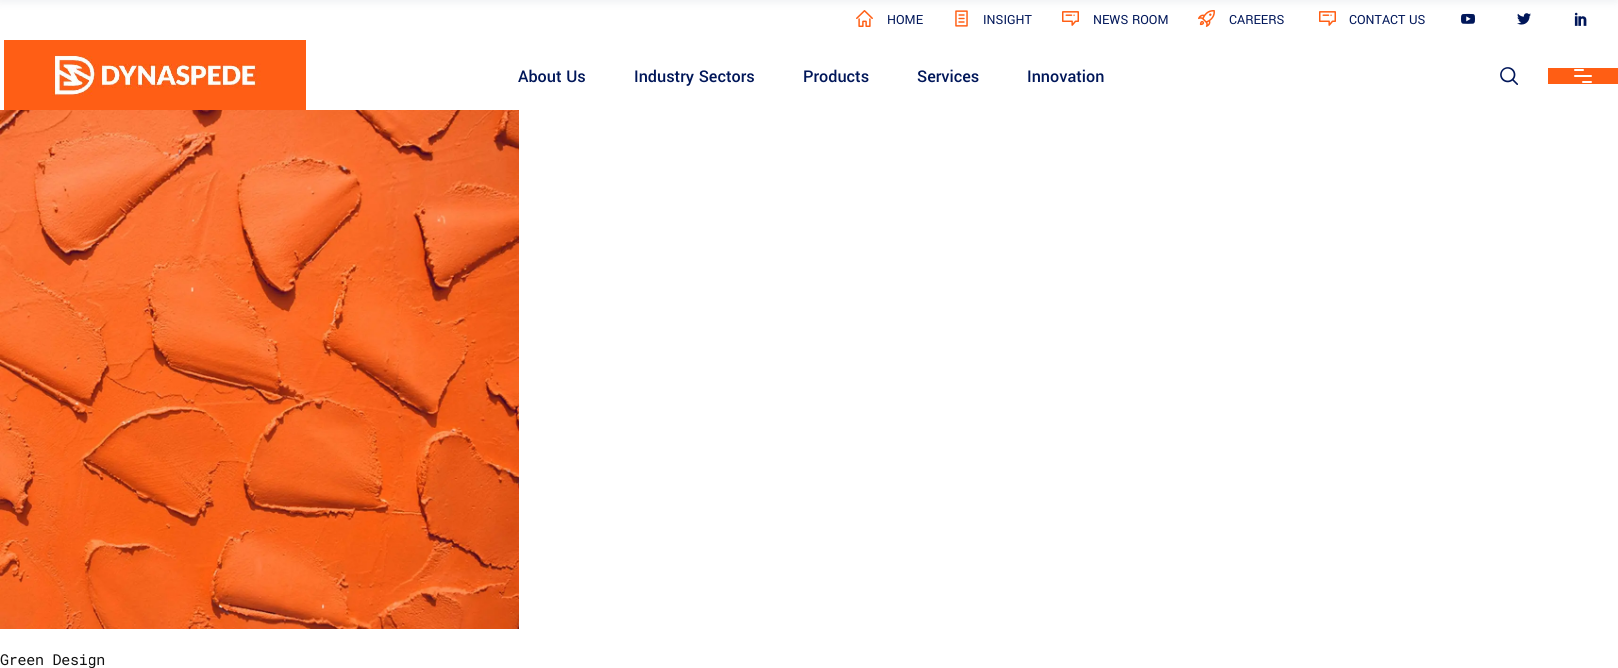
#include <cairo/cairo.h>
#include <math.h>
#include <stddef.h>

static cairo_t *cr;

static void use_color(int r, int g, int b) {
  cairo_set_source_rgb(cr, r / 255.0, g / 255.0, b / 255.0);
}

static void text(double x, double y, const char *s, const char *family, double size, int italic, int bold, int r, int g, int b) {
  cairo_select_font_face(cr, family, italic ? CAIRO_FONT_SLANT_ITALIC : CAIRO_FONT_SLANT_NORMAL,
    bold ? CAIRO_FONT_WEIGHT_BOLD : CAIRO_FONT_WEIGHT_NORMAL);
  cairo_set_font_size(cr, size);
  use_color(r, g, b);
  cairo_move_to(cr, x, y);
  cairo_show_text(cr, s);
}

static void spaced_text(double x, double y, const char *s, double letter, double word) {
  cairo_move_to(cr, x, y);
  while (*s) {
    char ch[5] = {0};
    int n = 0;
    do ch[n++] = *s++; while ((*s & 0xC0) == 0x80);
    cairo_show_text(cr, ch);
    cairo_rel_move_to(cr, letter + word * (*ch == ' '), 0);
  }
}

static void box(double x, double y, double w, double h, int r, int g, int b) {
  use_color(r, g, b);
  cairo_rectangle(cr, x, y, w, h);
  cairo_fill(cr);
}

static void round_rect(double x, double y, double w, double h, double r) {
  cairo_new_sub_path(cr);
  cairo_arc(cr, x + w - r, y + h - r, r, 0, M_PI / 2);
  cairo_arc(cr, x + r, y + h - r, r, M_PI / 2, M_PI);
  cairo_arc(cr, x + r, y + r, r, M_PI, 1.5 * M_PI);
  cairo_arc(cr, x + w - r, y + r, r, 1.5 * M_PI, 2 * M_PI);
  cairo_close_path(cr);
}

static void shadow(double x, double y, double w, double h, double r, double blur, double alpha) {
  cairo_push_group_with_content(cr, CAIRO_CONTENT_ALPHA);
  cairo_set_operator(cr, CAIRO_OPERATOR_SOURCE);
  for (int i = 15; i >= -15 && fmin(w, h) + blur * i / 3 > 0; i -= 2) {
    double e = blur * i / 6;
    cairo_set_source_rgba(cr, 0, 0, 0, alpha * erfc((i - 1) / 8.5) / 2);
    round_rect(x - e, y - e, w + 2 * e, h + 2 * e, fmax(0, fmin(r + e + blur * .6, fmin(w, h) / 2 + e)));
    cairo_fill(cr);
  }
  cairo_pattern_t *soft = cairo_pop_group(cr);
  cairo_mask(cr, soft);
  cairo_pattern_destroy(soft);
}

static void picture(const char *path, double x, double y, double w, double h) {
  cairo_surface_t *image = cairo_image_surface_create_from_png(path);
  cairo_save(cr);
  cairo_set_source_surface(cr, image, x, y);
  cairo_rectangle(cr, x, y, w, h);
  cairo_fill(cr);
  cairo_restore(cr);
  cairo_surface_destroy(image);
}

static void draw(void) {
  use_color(255, 255, 255);
  cairo_paint(cr);
  picture("img_01.png", 856, 10, 17, 17);
  picture("img_02.png", 955, 10, 13, 17);
  picture("img_03.png", 1062, 11, 17, 15);
  picture("img_04.png", 1198, 10, 17, 17);
  picture("img_03.png", 1319, 11, 17, 15);
  picture("img_05.png", 1461, 13, 14, 11);
  picture("img_06.png", 1517, 13, 14, 12);
  picture("img_07.png", 1574, 12, 13, 14);
  use_color(38, 59, 98);
  shadow(-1, -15, 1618, 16, 0, 5, 0.1);
  picture("img_08.png", 4, 40, 302, 70);
  picture("img_09.png", 1500, 67, 18, 18);
  box(1548, 68, 70, 16, 255, 94, 20);
  use_color(255, 255, 255);
  round_rect(1574, 69, 10, 2, 1);
  cairo_fill(cr);
  round_rect(1574, 75, 18, 2, 1);
  cairo_fill(cr);
  round_rect(1582, 81, 10, 2, 1);
  cairo_fill(cr);
  picture("img_10.png", 0, 110, 519, 519);
  text(887, 24, "HOME", "Yantramanav", 14, 0, 0, 0, 22, 89);
  text(983, 24, "INSIGHT", "Yantramanav", 14, 0, 0, 0, 22, 89);
  text(1093, 24, "NEWS ROOM", "Yantramanav", 14, 0, 0, 0, 22, 89);
  text(1229, 24, "CAREERS", "Yantramanav", 14, 0, 0, 0, 22, 89);
  text(1349, 24, "CONTACT US", "Yantramanav", 14, 0, 0, 0, 22, 89);
  text(518, 82, "About Us", "Yantramanav Medium", 18, 0, 0, 0, 22, 89);
  text(634, 82, "Industry Sectors", "Yantramanav Medium", 18, 0, 0, 0, 22, 89);
  text(803, 82, "Products", "Yantramanav Medium", 18, 0, 0, 0, 22, 89);
  text(917, 82, "Services", "Yantramanav Medium", 18, 0, 0, 0, 22, 89);
  text(1027, 82, "Innovation", "Yantramanav Medium", 18, 0, 0, 0, 22, 89);
  cairo_select_font_face(cr, "Roboto Mono", CAIRO_FONT_SLANT_NORMAL, CAIRO_FONT_WEIGHT_NORMAL);
  cairo_set_font_size(cr, 15);
  use_color(17, 17, 17);
  spaced_text(0, 665, "Green Design", -0.25, 0);
}

int main(void) {
  cairo_surface_t *surface = cairo_image_surface_create(CAIRO_FORMAT_RGB24, 1618, 668);
  cr = cairo_create(surface);
  cairo_font_options_t *options = cairo_font_options_create();
  cairo_font_options_set_hint_metrics(options, CAIRO_HINT_METRICS_OFF);
  cairo_font_options_set_hint_style(options, CAIRO_HINT_STYLE_NONE);
  cairo_set_font_options(cr, options);
  cairo_set_miter_limit(cr, 4);
  draw();
  cairo_surface_write_to_png(surface, "out.png");
  cairo_font_options_destroy(options);
  cairo_destroy(cr);
  cairo_surface_destroy(surface);
  return 0;
}
